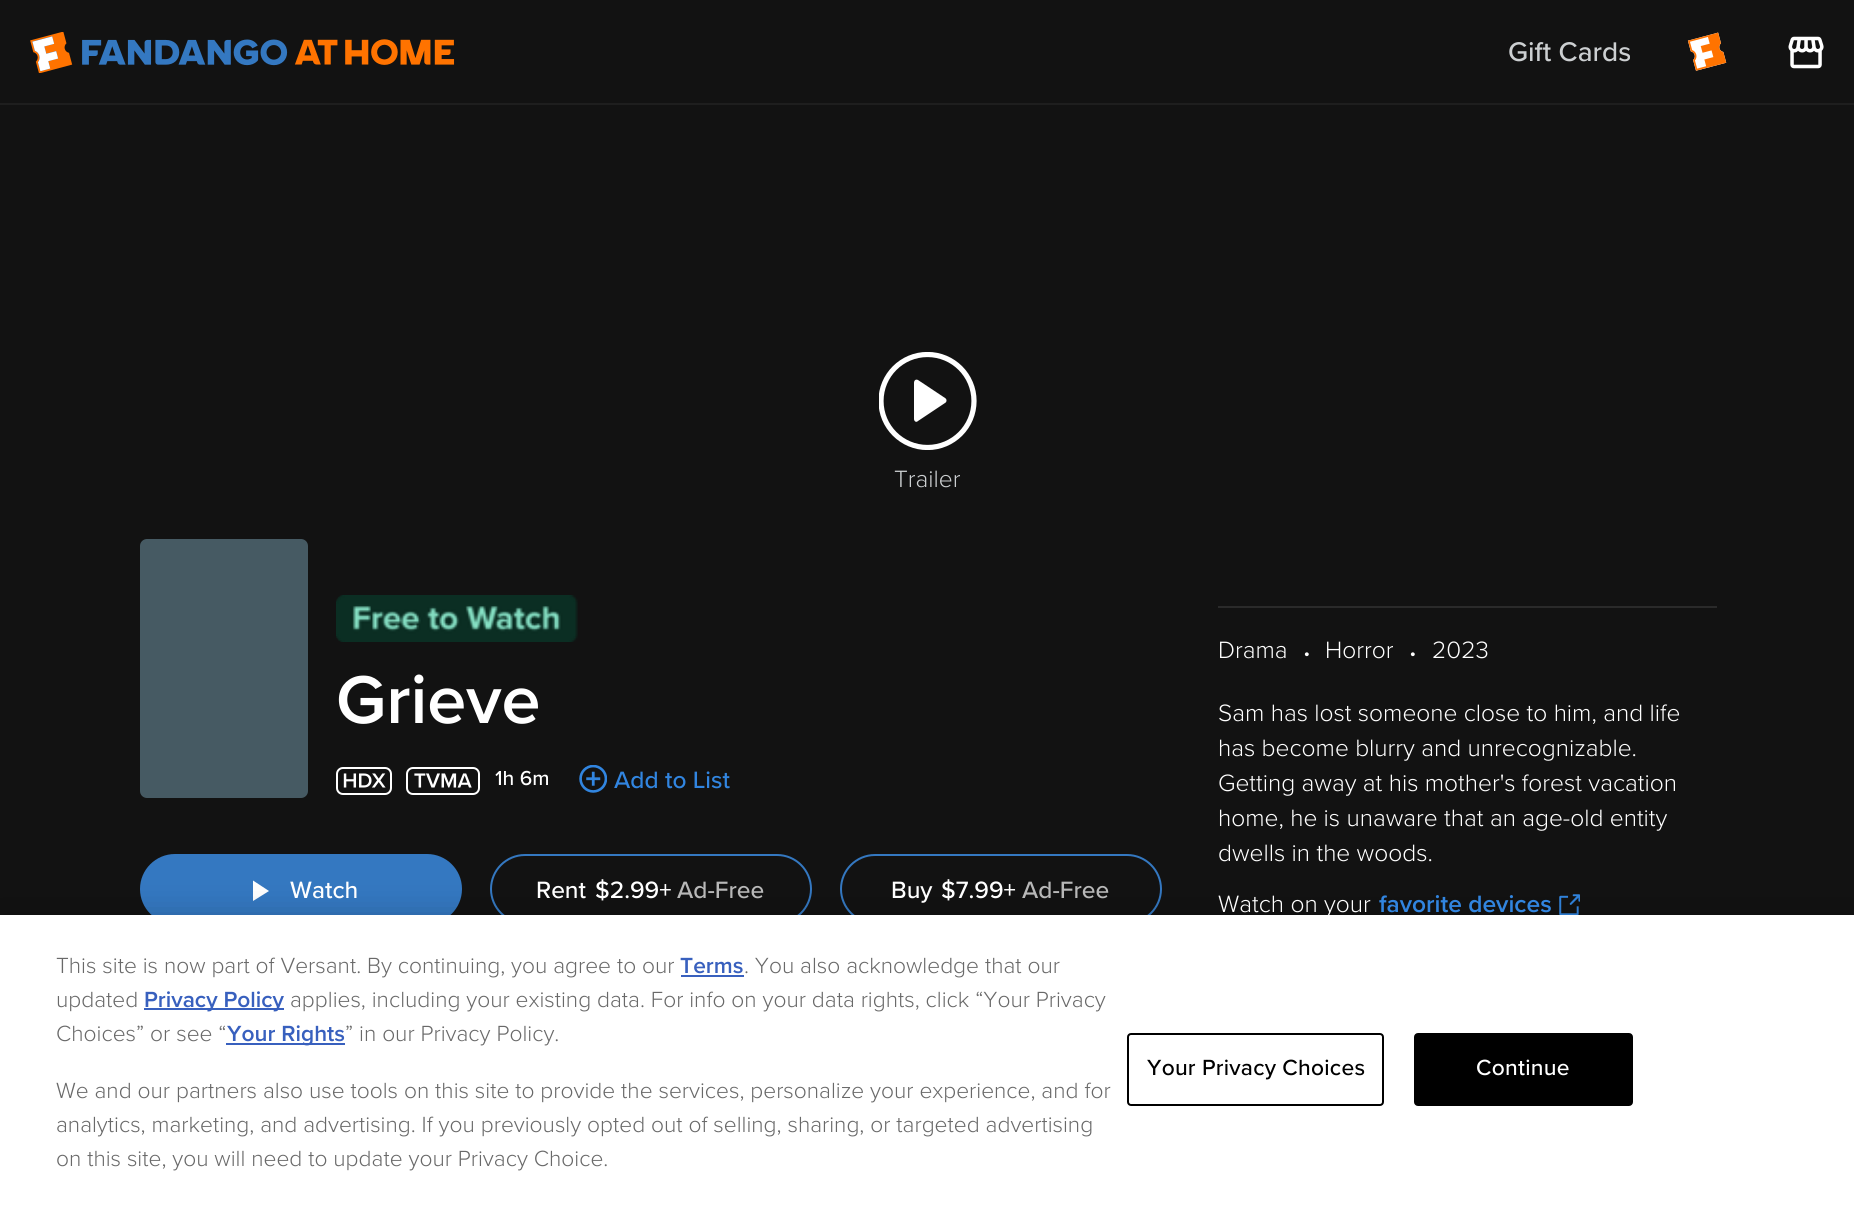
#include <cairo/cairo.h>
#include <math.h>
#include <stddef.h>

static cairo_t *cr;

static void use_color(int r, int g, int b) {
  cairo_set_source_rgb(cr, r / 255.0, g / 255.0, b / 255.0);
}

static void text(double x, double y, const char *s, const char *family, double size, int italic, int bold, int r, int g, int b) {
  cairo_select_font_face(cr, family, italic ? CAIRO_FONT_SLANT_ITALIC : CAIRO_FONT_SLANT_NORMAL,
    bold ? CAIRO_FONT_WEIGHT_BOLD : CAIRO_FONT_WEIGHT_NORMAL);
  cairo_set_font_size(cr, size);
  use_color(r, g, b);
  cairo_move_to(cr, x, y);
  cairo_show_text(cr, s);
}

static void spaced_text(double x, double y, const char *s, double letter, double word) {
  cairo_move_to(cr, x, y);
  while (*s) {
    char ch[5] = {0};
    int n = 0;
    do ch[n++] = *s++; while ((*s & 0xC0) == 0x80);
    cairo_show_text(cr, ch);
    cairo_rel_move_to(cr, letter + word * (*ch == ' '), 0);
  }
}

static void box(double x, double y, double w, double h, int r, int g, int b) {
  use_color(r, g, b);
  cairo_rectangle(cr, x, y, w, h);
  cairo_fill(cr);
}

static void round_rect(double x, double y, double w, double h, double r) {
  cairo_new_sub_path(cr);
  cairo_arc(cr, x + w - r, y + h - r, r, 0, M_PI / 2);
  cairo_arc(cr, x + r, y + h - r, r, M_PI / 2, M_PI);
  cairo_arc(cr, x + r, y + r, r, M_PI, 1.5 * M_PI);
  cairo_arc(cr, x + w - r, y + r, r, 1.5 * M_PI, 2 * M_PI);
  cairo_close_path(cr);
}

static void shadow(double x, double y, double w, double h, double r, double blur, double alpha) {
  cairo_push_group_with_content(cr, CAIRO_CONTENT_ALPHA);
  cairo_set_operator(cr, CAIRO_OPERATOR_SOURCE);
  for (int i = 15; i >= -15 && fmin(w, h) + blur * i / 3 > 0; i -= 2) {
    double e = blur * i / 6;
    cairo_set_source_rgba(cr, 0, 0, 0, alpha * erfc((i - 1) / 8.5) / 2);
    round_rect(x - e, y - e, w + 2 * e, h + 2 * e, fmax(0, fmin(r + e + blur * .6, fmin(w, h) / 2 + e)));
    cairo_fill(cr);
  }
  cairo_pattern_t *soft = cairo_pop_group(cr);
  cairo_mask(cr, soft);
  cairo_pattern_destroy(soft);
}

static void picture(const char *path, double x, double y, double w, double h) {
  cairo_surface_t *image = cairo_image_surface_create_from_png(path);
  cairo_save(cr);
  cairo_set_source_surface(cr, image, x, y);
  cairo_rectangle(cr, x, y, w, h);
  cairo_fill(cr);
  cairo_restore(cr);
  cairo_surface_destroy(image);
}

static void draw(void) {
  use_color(18, 18, 18);
  cairo_paint(cr);
  box(0, 103, 1854, 2, 30, 30, 30);
  picture("img_01.png", 30, 32, 425, 41);
  picture("img_02.png", 1687, 32, 40, 39);
  picture("img_03.png", 1788, 36, 36, 33);
  cairo_save(cr);
  cairo_rectangle(cr, 879, 352, 98, 98);
  cairo_clip(cr);
  cairo_arc(cr, 927.5, 401, 46.5, 0, 2 * M_PI);
  use_color(255, 255, 255);
  cairo_set_line_width(cr, 5.2);
  cairo_stroke(cr);
  cairo_restore(cr);
  use_color(255, 255, 255);
  cairo_set_fill_rule(cr, CAIRO_FILL_RULE_EVEN_ODD);
  cairo_new_path(cr);
  cairo_move_to(cr, 945, 398);
  cairo_line_to(cr, 918, 380);
  cairo_curve_to(cr, 916, 379, 914, 380, 914, 383);
  cairo_line_to(cr, 914, 419);
  cairo_curve_to(cr, 914, 421, 916, 423, 918, 421);
  cairo_line_to(cr, 945, 403);
  cairo_curve_to(cr, 947, 402, 947, 399, 945, 398);
  cairo_close_path(cr);
  cairo_fill(cr);
  use_color(70, 90, 99);
  round_rect(140, 539, 168, 259, 7);
  cairo_fill(cr);
  picture("img_04.png", 336, 595, 242, 47);
  picture("img_05.png", 336, 767, 56, 28);
  picture("img_06.png", 406, 767, 74, 28);
  picture("img_07.png", 579, 765, 28, 28);
  box(1218, 606, 499, 2, 42, 42, 42);
  picture("img_08.png", 1559, 894, 21, 21);
  use_color(52, 120, 193);
  round_rect(140, 854, 322, 70, 35);
  cairo_fill(cr);
  use_color(255, 255, 255);
  cairo_set_fill_rule(cr, CAIRO_FILL_RULE_WINDING);
  cairo_new_path(cr);
  cairo_move_to(cr, 253, 901);
  cairo_line_to(cr, 253, 880.5);
  cairo_line_to(cr, 269, 891);
  cairo_close_path(cr);
  cairo_fill(cr);
  round_rect(491, 855, 320, 68, 34);
  use_color(52, 120, 193);
  cairo_stroke(cr);
  round_rect(841, 855, 320, 68, 34);
  cairo_stroke(cr);
  use_color(0, 0, 0);
  shadow(0, 915, 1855, 303, 0, 16, 0.2);
  box(0, 915, 1854, 303, 255, 255, 255);
  box(681, 975, 63, 2, 56, 96, 190);
  box(144, 1008, 140, 2, 56, 96, 190);
  box(226, 1043, 119, 2, 56, 96, 190);
  round_rect(1128, 1034, 255, 71, 3);
  use_color(0, 0, 0);
  cairo_stroke(cr);
  round_rect(1415, 1034, 217, 71, 3);
  cairo_fill_preserve(cr);
  cairo_stroke(cr);
  text(1508, 61, "Gift Cards", "Proxima Nova Medium", 28, 0, 0, 204, 207, 209);
  text(894, 487, "Trailer", "Proxima Nova Light", 24.5, 0, 0, 204, 207, 209);
  text(336, 723, "Grieve", "Proxima Nova SemiBold", 70, 0, 0, 255, 255, 255);
  text(495, 785, "1h 6m", "Proxima Nova Medium", 21, 0, 0, 255, 255, 255);
  text(614, 788, "Add to List", "Proxima Nova Medium", 24.5, 0, 0, 49, 133, 224);
  text(1218, 658, "Drama", "Proxima Nova Light", 24.5, 0, 0, 255, 255, 255);
  text(1302, 665, "·", "Proxima Nova Light", 44, 0, 0, 255, 255, 255);
  text(1325, 658, "Horror", "Proxima Nova Light", 24.5, 0, 0, 255, 255, 255);
  text(1408, 665, "·", "Proxima Nova Light", 44, 0, 0, 255, 255, 255);
  text(1432, 658, "2023", "Proxima Nova Light", 24.5, 0, 0, 255, 255, 255);
  text(1218, 721, "Sam has lost someone close to him, and life", "Proxima Nova Light", 24.5, 0, 0, 255, 255, 255);
  text(1218, 756, "has become blurry and unrecognizable.", "Proxima Nova Light", 24.5, 0, 0, 255, 255, 255);
  text(1218, 791, "Getting away at his mother's forest vacation", "Proxima Nova Light", 24.5, 0, 0, 255, 255, 255);
  text(1218, 826, "home, he is unaware that an age-old entity", "Proxima Nova Light", 24.5, 0, 0, 255, 255, 255);
  text(1218, 861, "dwells in the woods.", "Proxima Nova Light", 24.5, 0, 0, 255, 255, 255);
  text(1218, 912, "Watch on your", "Proxima Nova Light", 24.5, 0, 0, 255, 255, 255);
  text(1379, 912, "favorite devices", "Proxima Nova SemiBold", 24.5, 0, 0, 49, 133, 224);
  text(290, 898, "Watch", "Proxima Nova Medium", 24.5, 0, 0, 255, 255, 255);
  text(536, 898, "Rent", "Proxima Nova Medium", 24.5, 0, 0, 255, 255, 255);
  text(595, 898, "$2.99+", "Proxima Nova Medium", 24.5, 0, 0, 255, 255, 255);
  text(677, 898, "Ad-Free", "Proxima Nova Medium", 24.5, 0, 0, 184, 184, 184);
  text(891, 898, "Buy", "Proxima Nova Medium", 24.5, 0, 0, 255, 255, 255);
  text(941, 898, "$7.99+", "Proxima Nova Medium", 24.5, 0, 0, 255, 255, 255);
  text(1022, 898, "Ad-Free", "Proxima Nova Medium", 24.5, 0, 0, 184, 184, 184);
  text(56, 973, "This site is now part of Versant. By continuing, you agree to our", "Proxima Nova Light", 22.75, 0, 0, 105, 105, 105);
  text(680, 973, "Terms", "Proxima Nova SemiBold", 22.75, 0, 0, 56, 96, 190);
  text(744, 973, ". You also acknowledge that our", "Proxima Nova Light", 22.75, 0, 0, 105, 105, 105);
  text(56, 1007, "updated", "Proxima Nova Light", 22.75, 0, 0, 105, 105, 105);
  text(144, 1007, "Privacy Policy", "Proxima Nova SemiBold", 22.75, 0, 0, 56, 96, 190);
  text(290, 1007, "applies, including your existing data. For info on your data rights, click “Your Privacy", "Proxima Nova Light", 22.75, 0, 0, 105, 105, 105);
  text(56, 1041, "Choices” or see “", "Proxima Nova Light", 22.75, 0, 0, 105, 105, 105);
  text(227, 1041, "Your Rights", "Proxima Nova SemiBold", 22.75, 0, 0, 56, 96, 190);
  text(345, 1041, "” in our Privacy Policy.", "Proxima Nova Light", 22.75, 0, 0, 105, 105, 105);
  text(56, 1098, "We and our partners also use tools on this site to provide the services, personalize your experience, and for", "Proxima Nova Light", 22.75, 0, 0, 105, 105, 105);
  text(56, 1132, "analytics, marketing, and advertising. If you previously opted out of selling, sharing, or targeted advertising", "Proxima Nova Light", 22.75, 0, 0, 105, 105, 105);
  text(56, 1166, "on this site, you will need to update your Privacy Choice.", "Proxima Nova Light", 22.75, 0, 0, 105, 105, 105);
  cairo_select_font_face(cr, "Proxima Nova Medium", CAIRO_FONT_SLANT_NORMAL, CAIRO_FONT_WEIGHT_NORMAL);
  use_color(0, 0, 0);
  spaced_text(1147, 1075, "Your Privacy Choices", 0.25, 0);
  use_color(255, 255, 255);
  spaced_text(1476, 1075, "Continue", 0.25, 0);
}

int main(void) {
  cairo_surface_t *surface = cairo_image_surface_create(CAIRO_FORMAT_RGB24, 1854, 1218);
  cr = cairo_create(surface);
  cairo_font_options_t *options = cairo_font_options_create();
  cairo_font_options_set_hint_metrics(options, CAIRO_HINT_METRICS_OFF);
  cairo_font_options_set_hint_style(options, CAIRO_HINT_STYLE_NONE);
  cairo_set_font_options(cr, options);
  cairo_set_miter_limit(cr, 4);
  draw();
  cairo_surface_write_to_png(surface, "out.png");
  cairo_font_options_destroy(options);
  cairo_destroy(cr);
  cairo_surface_destroy(surface);
  return 0;
}
